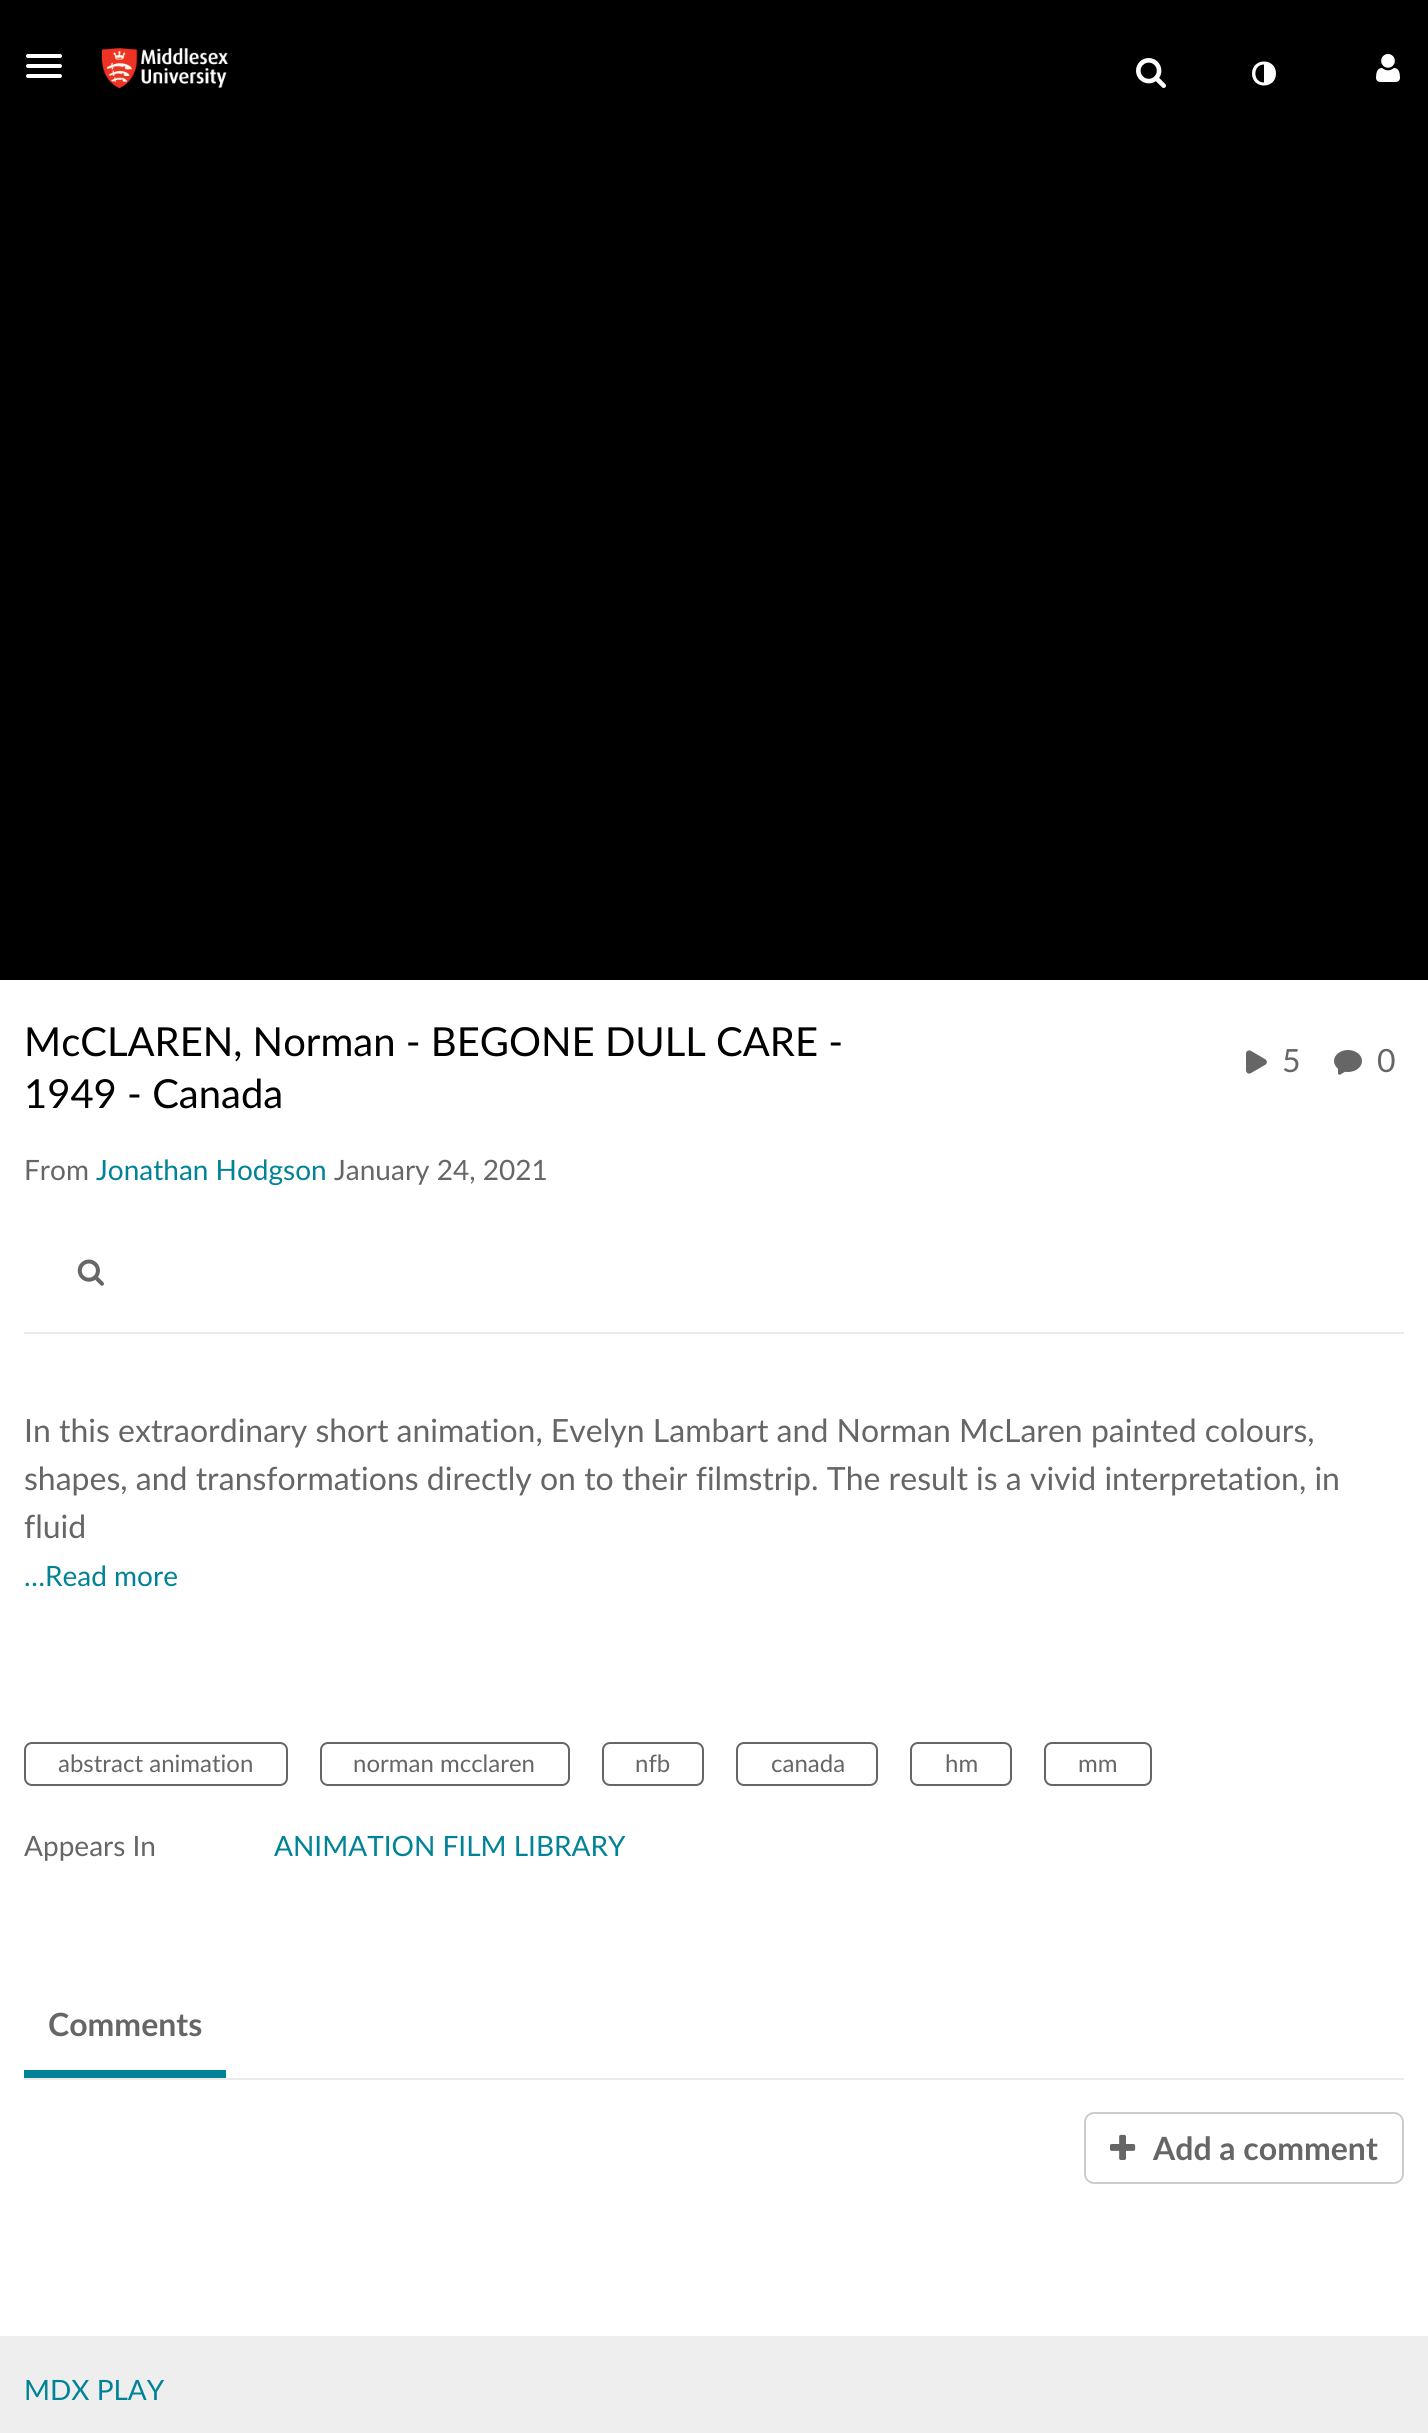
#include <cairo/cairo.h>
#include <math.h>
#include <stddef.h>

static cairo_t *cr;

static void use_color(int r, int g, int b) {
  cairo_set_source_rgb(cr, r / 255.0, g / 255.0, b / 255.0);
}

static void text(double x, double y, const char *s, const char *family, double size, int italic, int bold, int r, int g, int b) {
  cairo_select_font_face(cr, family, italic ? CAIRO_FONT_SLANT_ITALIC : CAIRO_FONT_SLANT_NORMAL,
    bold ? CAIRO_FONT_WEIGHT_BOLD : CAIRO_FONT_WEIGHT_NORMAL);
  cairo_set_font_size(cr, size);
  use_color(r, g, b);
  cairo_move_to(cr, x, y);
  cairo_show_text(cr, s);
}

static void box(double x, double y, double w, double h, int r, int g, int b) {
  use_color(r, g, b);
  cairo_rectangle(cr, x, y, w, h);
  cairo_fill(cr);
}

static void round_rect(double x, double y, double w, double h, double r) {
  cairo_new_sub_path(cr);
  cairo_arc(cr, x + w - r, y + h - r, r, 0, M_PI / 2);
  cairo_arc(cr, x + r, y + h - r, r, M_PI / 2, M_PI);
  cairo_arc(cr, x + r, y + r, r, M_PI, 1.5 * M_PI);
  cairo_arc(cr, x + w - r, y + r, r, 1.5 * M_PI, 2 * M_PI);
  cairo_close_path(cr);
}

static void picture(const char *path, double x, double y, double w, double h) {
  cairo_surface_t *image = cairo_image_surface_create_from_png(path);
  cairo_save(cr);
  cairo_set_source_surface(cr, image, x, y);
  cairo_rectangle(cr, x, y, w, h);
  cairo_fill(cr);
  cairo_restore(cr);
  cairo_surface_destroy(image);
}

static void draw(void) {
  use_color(255, 255, 255);
  cairo_paint(cr);
  box(0, 0, 1428, 980, 0, 0, 0);
  use_color(255, 255, 255);
  round_rect(26, 54, 36, 4, 2);
  cairo_fill(cr);
  round_rect(26, 64, 36, 4, 2);
  cairo_fill(cr);
  round_rect(26, 74, 36, 4, 2);
  cairo_fill(cr);
  picture("img_01.png", 102, 48, 126, 40);
  picture("img_02.png", 1136, 58, 30, 30);
  cairo_new_path(cr);
  cairo_move_to(cr, 1264, 82.5);
  cairo_line_to(cr, 1264, 64.5);
  cairo_curve_to(cr, 1252.5, 64.5, 1252.5, 82.5, 1264, 82.5);
  cairo_close_path(cr);
  cairo_move_to(cr, 1276, 73.5);
  cairo_curve_to(cr, 1276, 89.5, 1252, 89.5, 1252, 73.5);
  cairo_curve_to(cr, 1252, 57.5, 1276, 57.5, 1276, 73.5);
  cairo_close_path(cr);
  cairo_fill(cr);
  picture("img_03.png", 1376, 54, 24, 28);
  picture("img_04.png", 1246, 1050, 21, 24);
  picture("img_05.png", 1334, 1050, 28, 25);
  box(24, 1332, 1380, 2, 235, 235, 235);
  picture("img_06.png", 77, 1259, 27, 27);
  round_rect(25, 1743, 262, 42, 7);
  use_color(102, 102, 102);
  cairo_stroke(cr);
  round_rect(321, 1743, 248, 42, 7);
  cairo_stroke(cr);
  round_rect(603, 1743, 100, 42, 7);
  cairo_stroke(cr);
  round_rect(737, 1743, 140, 42, 7);
  cairo_stroke(cr);
  round_rect(911, 1743, 100, 42, 7);
  cairo_stroke(cr);
  round_rect(1045, 1743, 106, 42, 7);
  cairo_stroke(cr);
  box(24, 2078, 1380, 2, 235, 235, 235);
  box(24, 2070, 202, 8, 0, 130, 151);
  round_rect(1085, 2113, 318, 70, 9);
  use_color(204, 204, 204);
  cairo_stroke(cr);
  picture("img_07.png", 1110, 2134, 26, 26);
  box(0, 2336, 1428, 97, 238, 238, 238);
  text(24, 1056, "McCLAREN, Norman - BEGONE DULL CARE -", "Lato", 40, 0, 0, 0, 0, 0);
  text(24, 1108, "1949 - Canada", "Lato", 40, 0, 0, 0, 0, 0);
  text(24, 1180, "From", "Lato", 28, 0, 0, 102, 102, 102);
  text(96, 1180, "Jonathan Hodgson", "Lato", 28, 0, 0, 0, 130, 151);
  text(334, 1180, "January 24, 2021", "Lato", 28, 0, 0, 102, 102, 102);
  text(1282, 1072, "5", "Lato", 32, 0, 0, 102, 102, 102);
  text(1377, 1072, "0", "Lato", 32, 0, 0, 102, 102, 102);
  text(24, 1442, "In this extraordinary short animation, Evelyn Lambart and Norman McLaren painted colours,", "Lato", 32, 0, 0, 102, 102, 102);
  text(24, 1490, "shapes, and transformations directly on to their filmstrip. The result is a vivid interpretation, in", "Lato", 32, 0, 0, 102, 102, 102);
  text(24, 1538, "fluid", "Lato", 32, 0, 0, 102, 102, 102);
  text(24, 1586, "…Read more", "Lato", 28, 0, 0, 0, 130, 151);
  text(58, 1772, "abstract animation", "Lato", 24, 0, 0, 102, 102, 102);
  text(353, 1772, "norman mcclaren", "Lato", 24, 0, 0, 102, 102, 102);
  text(635, 1772, "nfb", "Lato", 24, 0, 0, 102, 102, 102);
  text(771, 1772, "canada", "Lato", 24, 0, 0, 102, 102, 102);
  text(945, 1772, "hm", "Lato", 24, 0, 0, 102, 102, 102);
  text(1078, 1772, "mm", "Lato", 24, 0, 0, 102, 102, 102);
  text(24, 1856, "Appears In", "Lato", 28, 0, 0, 102, 102, 102);
  text(274, 1856, "ANIMATION FILM LIBRARY", "Lato", 28, 0, 0, 0, 130, 151);
  text(48, 2036, "Comments", "Lato", 32, 0, 1, 102, 102, 102);
  text(1153, 2160, "Add a comment", "Lato", 32, 0, 1, 102, 102, 102);
  text(24, 2400, "MDX PLAY", "Lato", 28, 0, 0, 0, 130, 151);
}

int main(void) {
  cairo_surface_t *surface = cairo_image_surface_create(CAIRO_FORMAT_RGB24, 1428, 2433);
  cr = cairo_create(surface);
  cairo_font_options_t *options = cairo_font_options_create();
  cairo_font_options_set_hint_metrics(options, CAIRO_HINT_METRICS_OFF);
  cairo_font_options_set_hint_style(options, CAIRO_HINT_STYLE_NONE);
  cairo_set_font_options(cr, options);
  cairo_set_miter_limit(cr, 4);
  draw();
  cairo_surface_write_to_png(surface, "out.png");
  cairo_font_options_destroy(options);
  cairo_destroy(cr);
  cairo_surface_destroy(surface);
  return 0;
}
